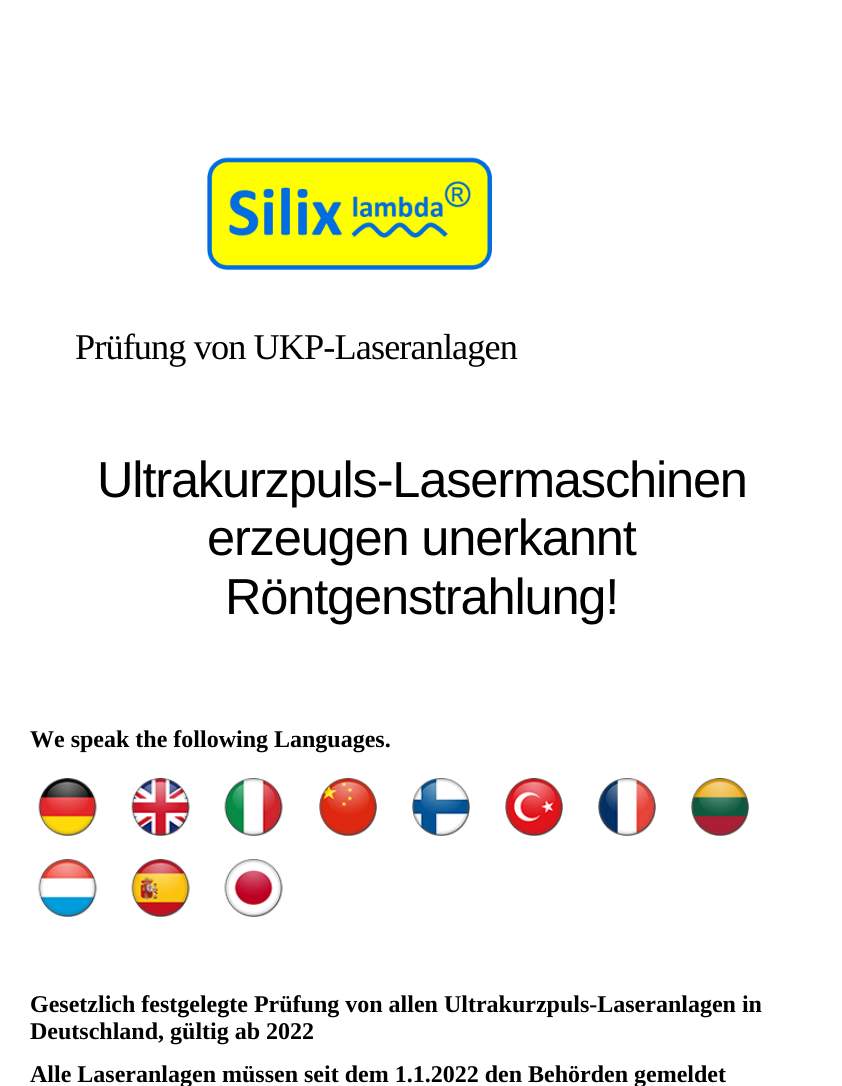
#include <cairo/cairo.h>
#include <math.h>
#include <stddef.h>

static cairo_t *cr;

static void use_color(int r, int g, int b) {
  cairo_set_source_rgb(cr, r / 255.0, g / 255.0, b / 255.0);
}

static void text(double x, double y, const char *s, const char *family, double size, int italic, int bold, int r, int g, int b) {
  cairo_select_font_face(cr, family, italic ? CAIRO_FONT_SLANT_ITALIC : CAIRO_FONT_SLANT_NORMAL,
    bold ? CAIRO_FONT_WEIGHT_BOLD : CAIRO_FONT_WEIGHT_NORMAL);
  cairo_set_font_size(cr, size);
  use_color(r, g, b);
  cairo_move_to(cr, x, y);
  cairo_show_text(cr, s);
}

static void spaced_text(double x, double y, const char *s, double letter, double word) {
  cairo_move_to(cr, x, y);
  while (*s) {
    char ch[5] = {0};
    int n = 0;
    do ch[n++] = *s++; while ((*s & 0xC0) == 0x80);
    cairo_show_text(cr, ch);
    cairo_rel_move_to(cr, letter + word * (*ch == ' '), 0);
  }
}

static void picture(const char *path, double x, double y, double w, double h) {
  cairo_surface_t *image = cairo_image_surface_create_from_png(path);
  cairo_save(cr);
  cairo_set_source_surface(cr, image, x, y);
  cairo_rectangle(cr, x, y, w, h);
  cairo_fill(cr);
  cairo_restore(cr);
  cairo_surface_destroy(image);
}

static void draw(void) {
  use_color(255, 255, 255);
  cairo_paint(cr);
  picture("img_01.png", 207, 157, 285, 113);
  picture("img_02.png", 38, 778, 59, 58);
  picture("img_03.png", 131, 778, 59, 58);
  picture("img_04.png", 224, 778, 59, 58);
  picture("img_05.png", 319, 778, 58, 58);
  picture("img_06.png", 412, 778, 58, 58);
  picture("img_07.png", 505, 778, 58, 58);
  picture("img_08.png", 598, 778, 58, 58);
  picture("img_09.png", 691, 778, 58, 58);
  picture("img_10.png", 38, 859, 59, 58);
  picture("img_11.png", 131, 859, 59, 58);
  picture("img_12.png", 224, 859, 59, 58);
  cairo_select_font_face(cr, "Liberation Serif", CAIRO_FONT_SLANT_NORMAL, CAIRO_FONT_WEIGHT_NORMAL);
  cairo_set_font_size(cr, 36.25);
  use_color(0, 0, 0);
  spaced_text(75, 359, "Prüfung von UKP-Laseranlagen", -0.9, 0);
  cairo_select_font_face(cr, "Liberation Sans", CAIRO_FONT_SLANT_NORMAL, CAIRO_FONT_WEIGHT_NORMAL);
  cairo_set_font_size(cr, 50.6);
  spaced_text(97, 497, "Ultrakurzpuls-Lasermaschinen", -1.2, 0);
  spaced_text(207, 555, "erzeugen unerkannt", -1.2, 0);
  spaced_text(225, 614, "Röntgenstrahlung!", -1.2, 0);
  text(30, 747, "We speak the following Languages.", "Liberation Serif", 24, 0, 1, 0, 0, 0);
  text(30, 1012, "Gesetzlich festgelegte Prüfung von allen Ultrakurzpuls-Laseranlagen in", "Liberation Serif", 24, 0, 1, 0, 0, 0);
  text(30, 1039, "Deutschland, gültig ab 2022", "Liberation Serif", 24, 0, 1, 0, 0, 0);
  text(30, 1082, "Alle Laseranlagen müssen seit dem 1.1.2022 den Behörden gemeldet", "Liberation Serif", 24, 0, 1, 0, 0, 0);
}

int main(void) {
  cairo_surface_t *surface = cairo_image_surface_create(CAIRO_FORMAT_RGB24, 842, 1086);
  cr = cairo_create(surface);
  cairo_font_options_t *options = cairo_font_options_create();
  cairo_font_options_set_hint_metrics(options, CAIRO_HINT_METRICS_OFF);
  cairo_font_options_set_hint_style(options, CAIRO_HINT_STYLE_NONE);
  cairo_set_font_options(cr, options);
  cairo_set_miter_limit(cr, 4);
  draw();
  cairo_surface_write_to_png(surface, "out.png");
  cairo_font_options_destroy(options);
  cairo_destroy(cr);
  cairo_surface_destroy(surface);
  return 0;
}
